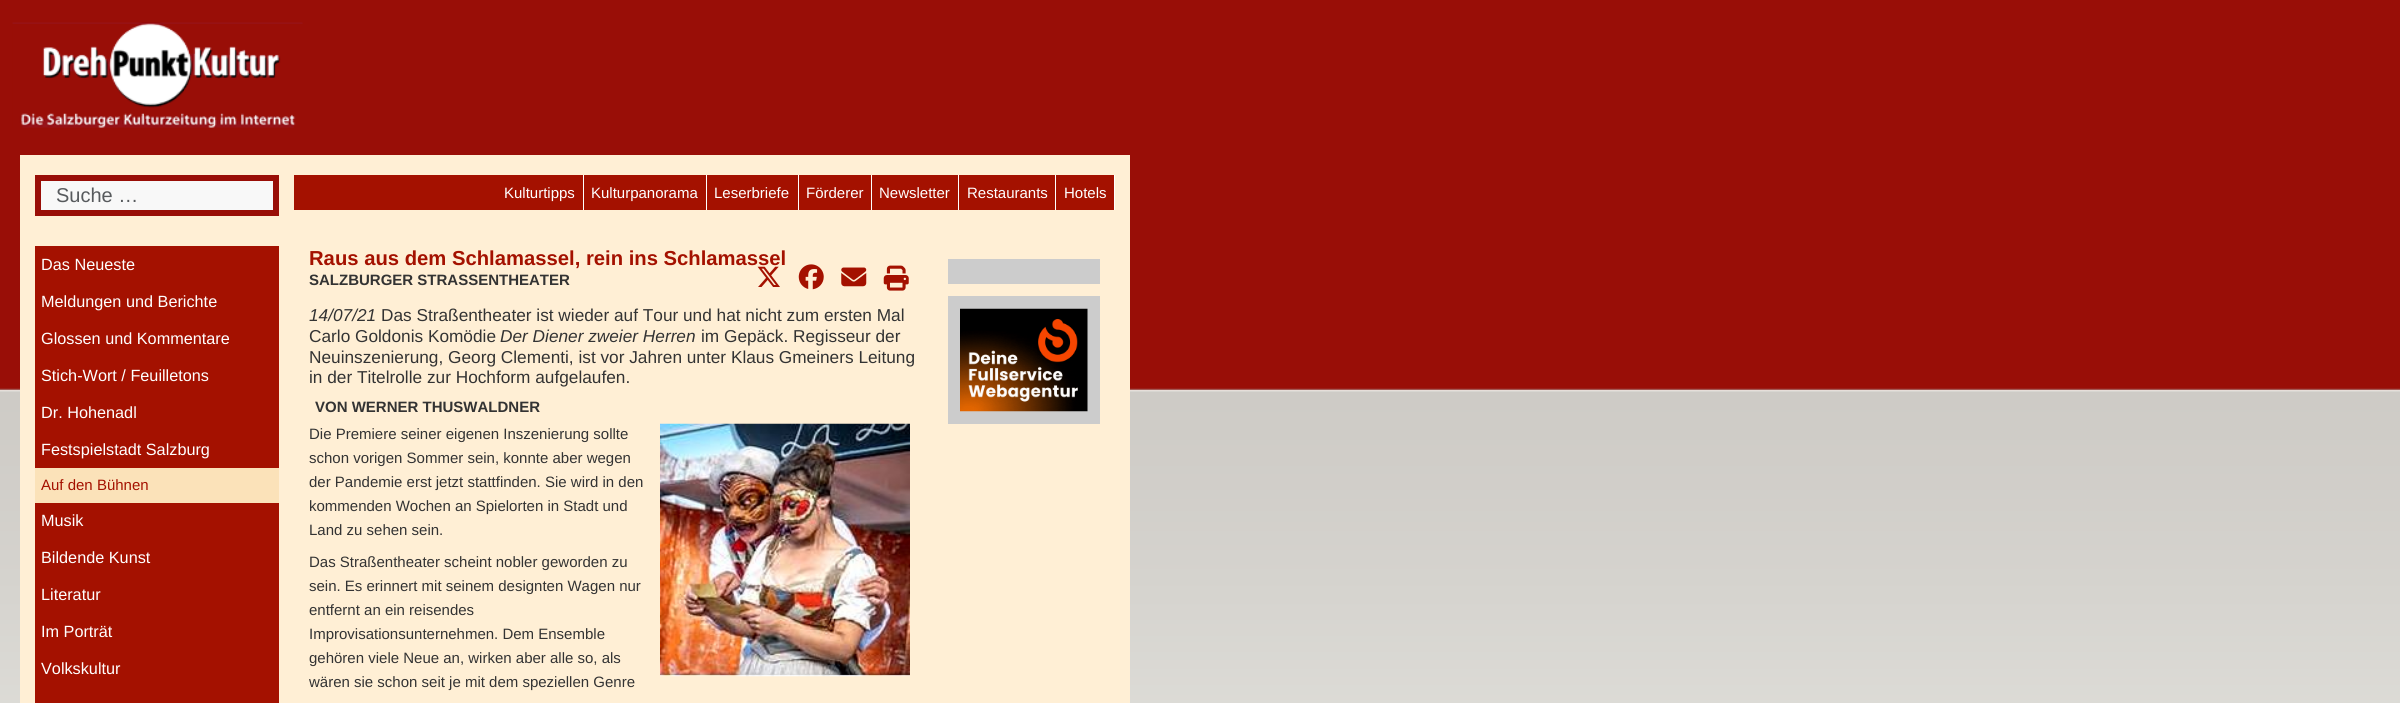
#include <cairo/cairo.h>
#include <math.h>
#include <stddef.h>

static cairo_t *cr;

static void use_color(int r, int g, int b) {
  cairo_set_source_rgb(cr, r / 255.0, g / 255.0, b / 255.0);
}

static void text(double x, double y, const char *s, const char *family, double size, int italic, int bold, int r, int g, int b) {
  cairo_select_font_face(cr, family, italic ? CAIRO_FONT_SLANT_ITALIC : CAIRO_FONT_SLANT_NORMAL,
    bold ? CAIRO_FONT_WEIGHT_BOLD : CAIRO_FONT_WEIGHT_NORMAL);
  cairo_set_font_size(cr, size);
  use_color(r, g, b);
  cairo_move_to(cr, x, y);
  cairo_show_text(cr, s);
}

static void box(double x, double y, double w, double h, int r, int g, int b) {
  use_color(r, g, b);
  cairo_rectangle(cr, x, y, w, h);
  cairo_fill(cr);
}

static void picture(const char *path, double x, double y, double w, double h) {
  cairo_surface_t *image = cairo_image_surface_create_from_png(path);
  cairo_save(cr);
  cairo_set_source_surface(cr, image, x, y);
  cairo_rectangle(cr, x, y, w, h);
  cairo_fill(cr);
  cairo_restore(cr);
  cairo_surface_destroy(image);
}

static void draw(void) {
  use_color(255, 255, 255);
  cairo_paint(cr);
  picture("img_01.png", 0, 0, 2400, 703);
  picture("img_02.png", 12, 22, 291, 106);
  box(20, 155, 1110, 548, 255, 239, 213);
  box(35, 175, 244, 41, 153, 14, 7);
  box(41, 181, 232, 29, 248, 248, 248);
  box(294, 175, 820, 35, 164, 17, 0);
  box(583, 175, 1, 35, 255, 255, 255);
  box(706, 175, 1, 35, 255, 255, 255);
  box(798, 175, 1, 35, 255, 255, 255);
  box(871, 175, 1, 35, 255, 255, 255);
  box(958, 175, 1, 35, 255, 255, 255);
  box(1055, 175, 1, 35, 255, 255, 255);
  box(1114, 175, 1, 35, 255, 255, 255);
  box(35, 246, 244, 222, 164, 17, 0);
  box(35, 468, 244, 35, 251, 226, 185);
  box(35, 503, 244, 111, 164, 17, 0);
  box(35, 614, 244, 89, 164, 17, 0);
  picture("img_04.png", 798, 264, 26, 26);
  picture("img_05.png", 841, 267, 26, 20);
  picture("img_06.png", 883, 265, 26, 26);
  picture("img_07.png", 660, 423, 250, 254);
  box(948, 259, 152, 25, 204, 204, 204);
  box(948, 296, 152, 128, 204, 204, 204);
  picture("img_08.png", 960, 308, 128, 104);
  text(56, 202, "Suche …", "Liberation Sans", 20, 0, 0, 87, 90, 93);
  text(504, 198, "Kulturtipps", "Liberation Sans", 15, 0, 0, 255, 255, 255);
  text(591, 198, "Kulturpanorama", "Liberation Sans", 15, 0, 0, 255, 255, 255);
  text(714, 198, "Leserbriefe", "Liberation Sans", 15, 0, 0, 255, 255, 255);
  text(806, 198, "Förderer", "Liberation Sans", 15, 0, 0, 255, 255, 255);
  text(879, 198, "Newsletter", "Liberation Sans", 15, 0, 0, 255, 255, 255);
  text(967, 198, "Restaurants", "Liberation Sans", 15, 0, 0, 255, 255, 255);
  text(1064, 198, "Hotels", "Liberation Sans", 15, 0, 0, 255, 255, 255);
  text(41, 270, "Das Neueste", "Liberation Sans", 16.25, 0, 0, 255, 255, 255);
  text(41, 307, "Meldungen und Berichte", "Liberation Sans", 16.25, 0, 0, 255, 255, 255);
  text(41, 344, "Glossen und Kommentare", "Liberation Sans", 16.25, 0, 0, 255, 255, 255);
  text(41, 381, "Stich-Wort / Feuilletons", "Liberation Sans", 16.25, 0, 0, 255, 255, 255);
  text(41, 418, "Dr. Hohenadl", "Liberation Sans", 16.25, 0, 0, 255, 255, 255);
  text(41, 455, "Festspielstadt Salzburg", "Liberation Sans", 16.25, 0, 0, 255, 255, 255);
  text(41, 490, "Auf den Bühnen", "Liberation Sans", 15, 0, 0, 164, 17, 0);
  text(41, 526, "Musik", "Liberation Sans", 16.25, 0, 0, 255, 255, 255);
  text(41, 563, "Bildende Kunst", "Liberation Sans", 16.25, 0, 0, 255, 255, 255);
  text(41, 600, "Literatur", "Liberation Sans", 16.25, 0, 0, 255, 255, 255);
  text(41, 637, "Im Porträt", "Liberation Sans", 16.25, 0, 0, 255, 255, 255);
  text(41, 674, "Volkskultur", "Liberation Sans", 16.25, 0, 0, 255, 255, 255);
  text(309, 265, "Raus aus dem Schlamassel, rein ins Schlamassel", "Liberation Sans", 20.25, 0, 1, 164, 17, 0);
  picture("img_03.png", 757, 266, 23, 21);
  text(309, 285, "SALZBURGER STRASSENTHEATER", "Liberation Sans", 15, 0, 1, 51, 51, 51);
  text(309, 321, "14/07/21", "Liberation Sans", 17.25, 1, 0, 51, 51, 51);
  text(381, 321, "Das Straßentheater ist wieder auf Tour und hat nicht zum ersten Mal", "Liberation Sans", 17.25, 0, 0, 51, 51, 51);
  text(309, 342, "Carlo Goldonis Komödie", "Liberation Sans", 17.25, 0, 0, 51, 51, 51);
  text(500, 342, "Der Diener zweier Herren", "Liberation Sans", 17.25, 1, 0, 51, 51, 51);
  text(701, 342, "im Gepäck. Regisseur der", "Liberation Sans", 17.25, 0, 0, 51, 51, 51);
  text(309, 363, "Neuinszenierung, Georg Clementi, ist vor Jahren unter Klaus Gmeiners Leitung", "Liberation Sans", 17.25, 0, 0, 51, 51, 51);
  text(309, 383, "in der Titelrolle zur Hochform aufgelaufen.", "Liberation Sans", 17.25, 0, 0, 51, 51, 51);
  text(315, 412, "VON WERNER THUSWALDNER", "Liberation Sans", 15, 0, 1, 51, 51, 51);
  text(309, 439, "Die Premiere seiner eigenen Inszenierung sollte", "Liberation Sans", 15, 0, 0, 51, 51, 51);
  text(309, 463, "schon vorigen Sommer sein, konnte aber wegen", "Liberation Sans", 15, 0, 0, 51, 51, 51);
  text(309, 487, "der Pandemie erst jetzt stattfinden. Sie wird in den", "Liberation Sans", 15, 0, 0, 51, 51, 51);
  text(309, 511, "kommenden Wochen an Spielorten in Stadt und", "Liberation Sans", 15, 0, 0, 51, 51, 51);
  text(309, 535, "Land zu sehen sein.", "Liberation Sans", 15, 0, 0, 51, 51, 51);
  text(309, 567, "Das Straßentheater scheint nobler geworden zu", "Liberation Sans", 15, 0, 0, 51, 51, 51);
  text(309, 591, "sein. Es erinnert mit seinem designten Wagen nur", "Liberation Sans", 15, 0, 0, 51, 51, 51);
  text(309, 615, "entfernt an ein reisendes", "Liberation Sans", 15, 0, 0, 51, 51, 51);
  text(309, 639, "Improvisationsunternehmen. Dem Ensemble", "Liberation Sans", 15, 0, 0, 51, 51, 51);
  text(309, 663, "gehören viele Neue an, wirken aber alle so, als", "Liberation Sans", 15, 0, 0, 51, 51, 51);
  text(309, 687, "wären sie schon seit je mit dem speziellen Genre", "Liberation Sans", 15, 0, 0, 51, 51, 51);
}

int main(void) {
  cairo_surface_t *surface = cairo_image_surface_create(CAIRO_FORMAT_RGB24, 2400, 703);
  cr = cairo_create(surface);
  cairo_font_options_t *options = cairo_font_options_create();
  cairo_font_options_set_hint_metrics(options, CAIRO_HINT_METRICS_OFF);
  cairo_font_options_set_hint_style(options, CAIRO_HINT_STYLE_NONE);
  cairo_set_font_options(cr, options);
  cairo_set_miter_limit(cr, 4);
  draw();
  cairo_surface_write_to_png(surface, "out.png");
  cairo_font_options_destroy(options);
  cairo_destroy(cr);
  cairo_surface_destroy(surface);
  return 0;
}
